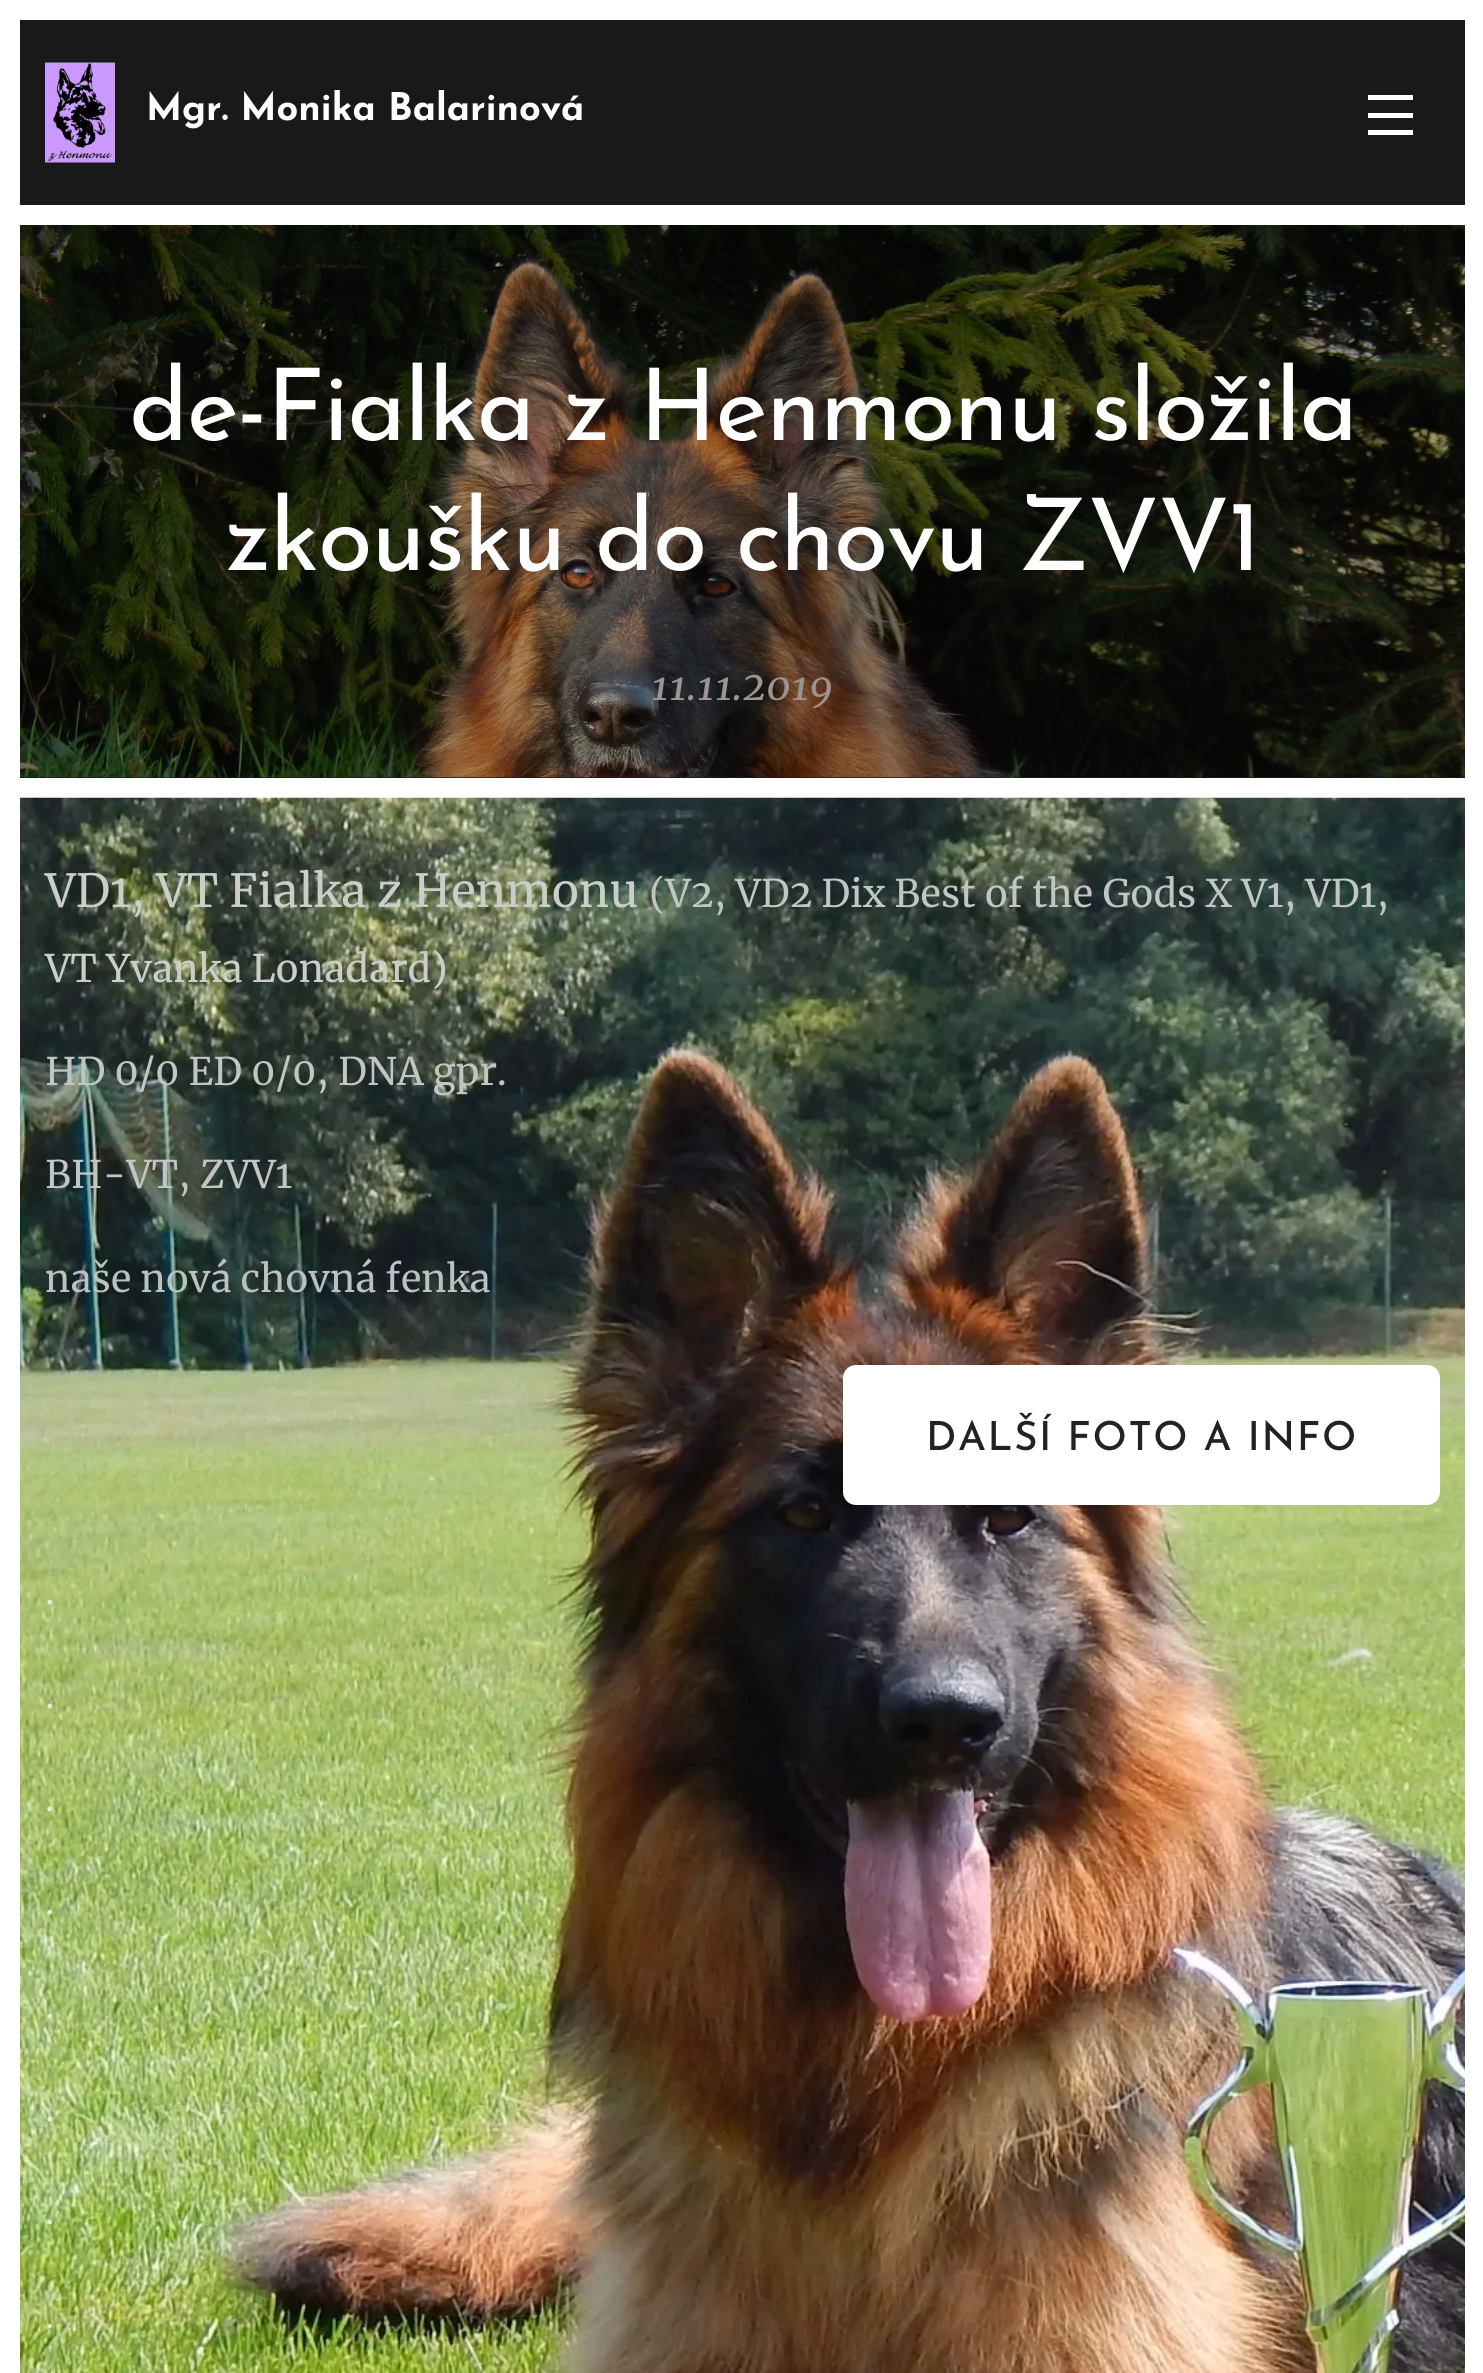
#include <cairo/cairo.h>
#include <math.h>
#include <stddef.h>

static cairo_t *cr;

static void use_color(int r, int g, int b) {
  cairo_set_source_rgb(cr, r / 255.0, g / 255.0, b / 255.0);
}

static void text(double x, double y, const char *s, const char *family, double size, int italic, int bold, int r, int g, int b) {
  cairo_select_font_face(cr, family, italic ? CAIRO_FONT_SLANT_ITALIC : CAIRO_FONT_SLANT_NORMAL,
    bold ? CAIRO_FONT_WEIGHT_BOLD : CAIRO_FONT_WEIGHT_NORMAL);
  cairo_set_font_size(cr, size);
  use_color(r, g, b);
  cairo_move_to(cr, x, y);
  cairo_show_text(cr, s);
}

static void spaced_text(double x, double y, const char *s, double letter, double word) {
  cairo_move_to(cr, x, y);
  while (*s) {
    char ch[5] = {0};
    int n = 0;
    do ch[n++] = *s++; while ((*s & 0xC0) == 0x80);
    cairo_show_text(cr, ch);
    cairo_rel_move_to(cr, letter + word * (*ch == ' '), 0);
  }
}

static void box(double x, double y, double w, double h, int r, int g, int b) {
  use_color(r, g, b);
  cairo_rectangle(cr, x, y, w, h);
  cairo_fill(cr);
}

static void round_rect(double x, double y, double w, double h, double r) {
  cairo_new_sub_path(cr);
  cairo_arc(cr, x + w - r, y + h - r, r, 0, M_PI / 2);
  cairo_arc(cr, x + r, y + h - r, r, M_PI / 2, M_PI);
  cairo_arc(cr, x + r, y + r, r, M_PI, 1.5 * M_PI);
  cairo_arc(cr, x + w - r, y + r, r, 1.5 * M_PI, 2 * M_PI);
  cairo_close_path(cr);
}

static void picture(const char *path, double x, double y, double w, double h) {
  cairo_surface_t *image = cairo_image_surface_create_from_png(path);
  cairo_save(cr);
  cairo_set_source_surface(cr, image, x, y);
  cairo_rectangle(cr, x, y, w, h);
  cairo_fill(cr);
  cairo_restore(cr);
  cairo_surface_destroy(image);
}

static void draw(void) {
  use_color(255, 255, 255);
  cairo_paint(cr);
  box(20, 20, 1445, 185, 25, 25, 25);
  picture("img_01.png", 45, 62, 70, 101);
  box(1368, 113, 45, 5, 255, 255, 255);
  box(1368, 95, 45, 5, 255, 255, 255);
  box(1368, 130, 45, 5, 255, 255, 255);
  box(20, 777, 1445, 1, 27, 27, 27);
  picture("img_02.png", 20, 225, 1445, 553);
  picture("img_03.png", 20, 797, 1445, 1576);
  use_color(255, 255, 255);
  round_rect(844.5, 1366.5, 594, 137, 11.5);
  cairo_fill_preserve(cr);
  cairo_set_line_width(cr, 3);
  cairo_stroke(cr);
  text(146, 120, "Mgr. Monika Balarinová", "Josefin Sans", 38, 0, 1, 255, 255, 255);
  cairo_select_font_face(cr, "Josefin Sans", CAIRO_FONT_SLANT_NORMAL, CAIRO_FONT_WEIGHT_NORMAL);
  cairo_set_font_size(cr, 100);
  spaced_text(129, 440, "de-Fialka z Henmonu složila", -1.5, 0);
  spaced_text(225, 570, "zkoušku do chovu ZVV1", -1.5, 0);
  text(651, 700, "11.11.2019", "Merriweather", 40, 1, 0, 155, 148, 144);
  text(45, 907, "VD1, VT Fialka z Henmonu", "Merriweather", 45.6, 0, 0, 203, 206, 200);
  text(649, 907, "(V2, VD2 Dix Best of the Gods X V1, VD1,", "Merriweather", 38, 0, 0, 193, 198, 196);
  text(45, 982, "VT Yvanka Lonadard)", "Merriweather", 38, 0, 0, 203, 206, 200);
  text(45, 1085, "HD 0/0 ED 0/0, DNA gpr.", "Merriweather", 38, 0, 0, 193, 198, 196);
  text(45, 1188, "BH-VT, ZVV1", "Merriweather", 38, 0, 0, 193, 198, 196);
  text(45, 1292, "naše nová chovná fenka", "Merriweather", 38, 0, 0, 187, 192, 192);
  cairo_select_font_face(cr, "Josefin Sans Medium", CAIRO_FONT_SLANT_NORMAL, CAIRO_FONT_WEIGHT_NORMAL);
  cairo_set_font_size(cr, 40);
  use_color(34, 34, 34);
  spaced_text(926, 1450, "DALŠÍ FOTO A INFO", 1.6, 0);
  text(45, 1604, ".", "Merriweather Light", 38, 0, 0, 230, 238, 213);
  text(45, 1708, ".", "Merriweather Light", 38, 0, 0, 230, 238, 213);
  text(45, 1811, ".", "Merriweather Light", 38, 0, 0, 230, 238, 213);
  text(45, 1914, ".", "Merriweather Light", 38, 0, 0, 230, 238, 213);
  text(45, 2018, ".", "Merriweather Light", 38, 0, 0, 230, 238, 213);
  text(45, 2121, ".", "Merriweather Light", 38, 0, 0, 233, 241, 221);
  text(45, 2224, ".", "Merriweather Light", 38, 0, 0, 230, 238, 213);
  text(45, 2328, ".", "Merriweather Light", 38, 0, 0, 224, 231, 203);
}

int main(void) {
  cairo_surface_t *surface = cairo_image_surface_create(CAIRO_FORMAT_RGB24, 1483, 2373);
  cr = cairo_create(surface);
  cairo_font_options_t *options = cairo_font_options_create();
  cairo_font_options_set_hint_metrics(options, CAIRO_HINT_METRICS_OFF);
  cairo_font_options_set_hint_style(options, CAIRO_HINT_STYLE_NONE);
  cairo_set_font_options(cr, options);
  cairo_set_miter_limit(cr, 4);
  draw();
  cairo_surface_write_to_png(surface, "out.png");
  cairo_font_options_destroy(options);
  cairo_destroy(cr);
  cairo_surface_destroy(surface);
  return 0;
}
